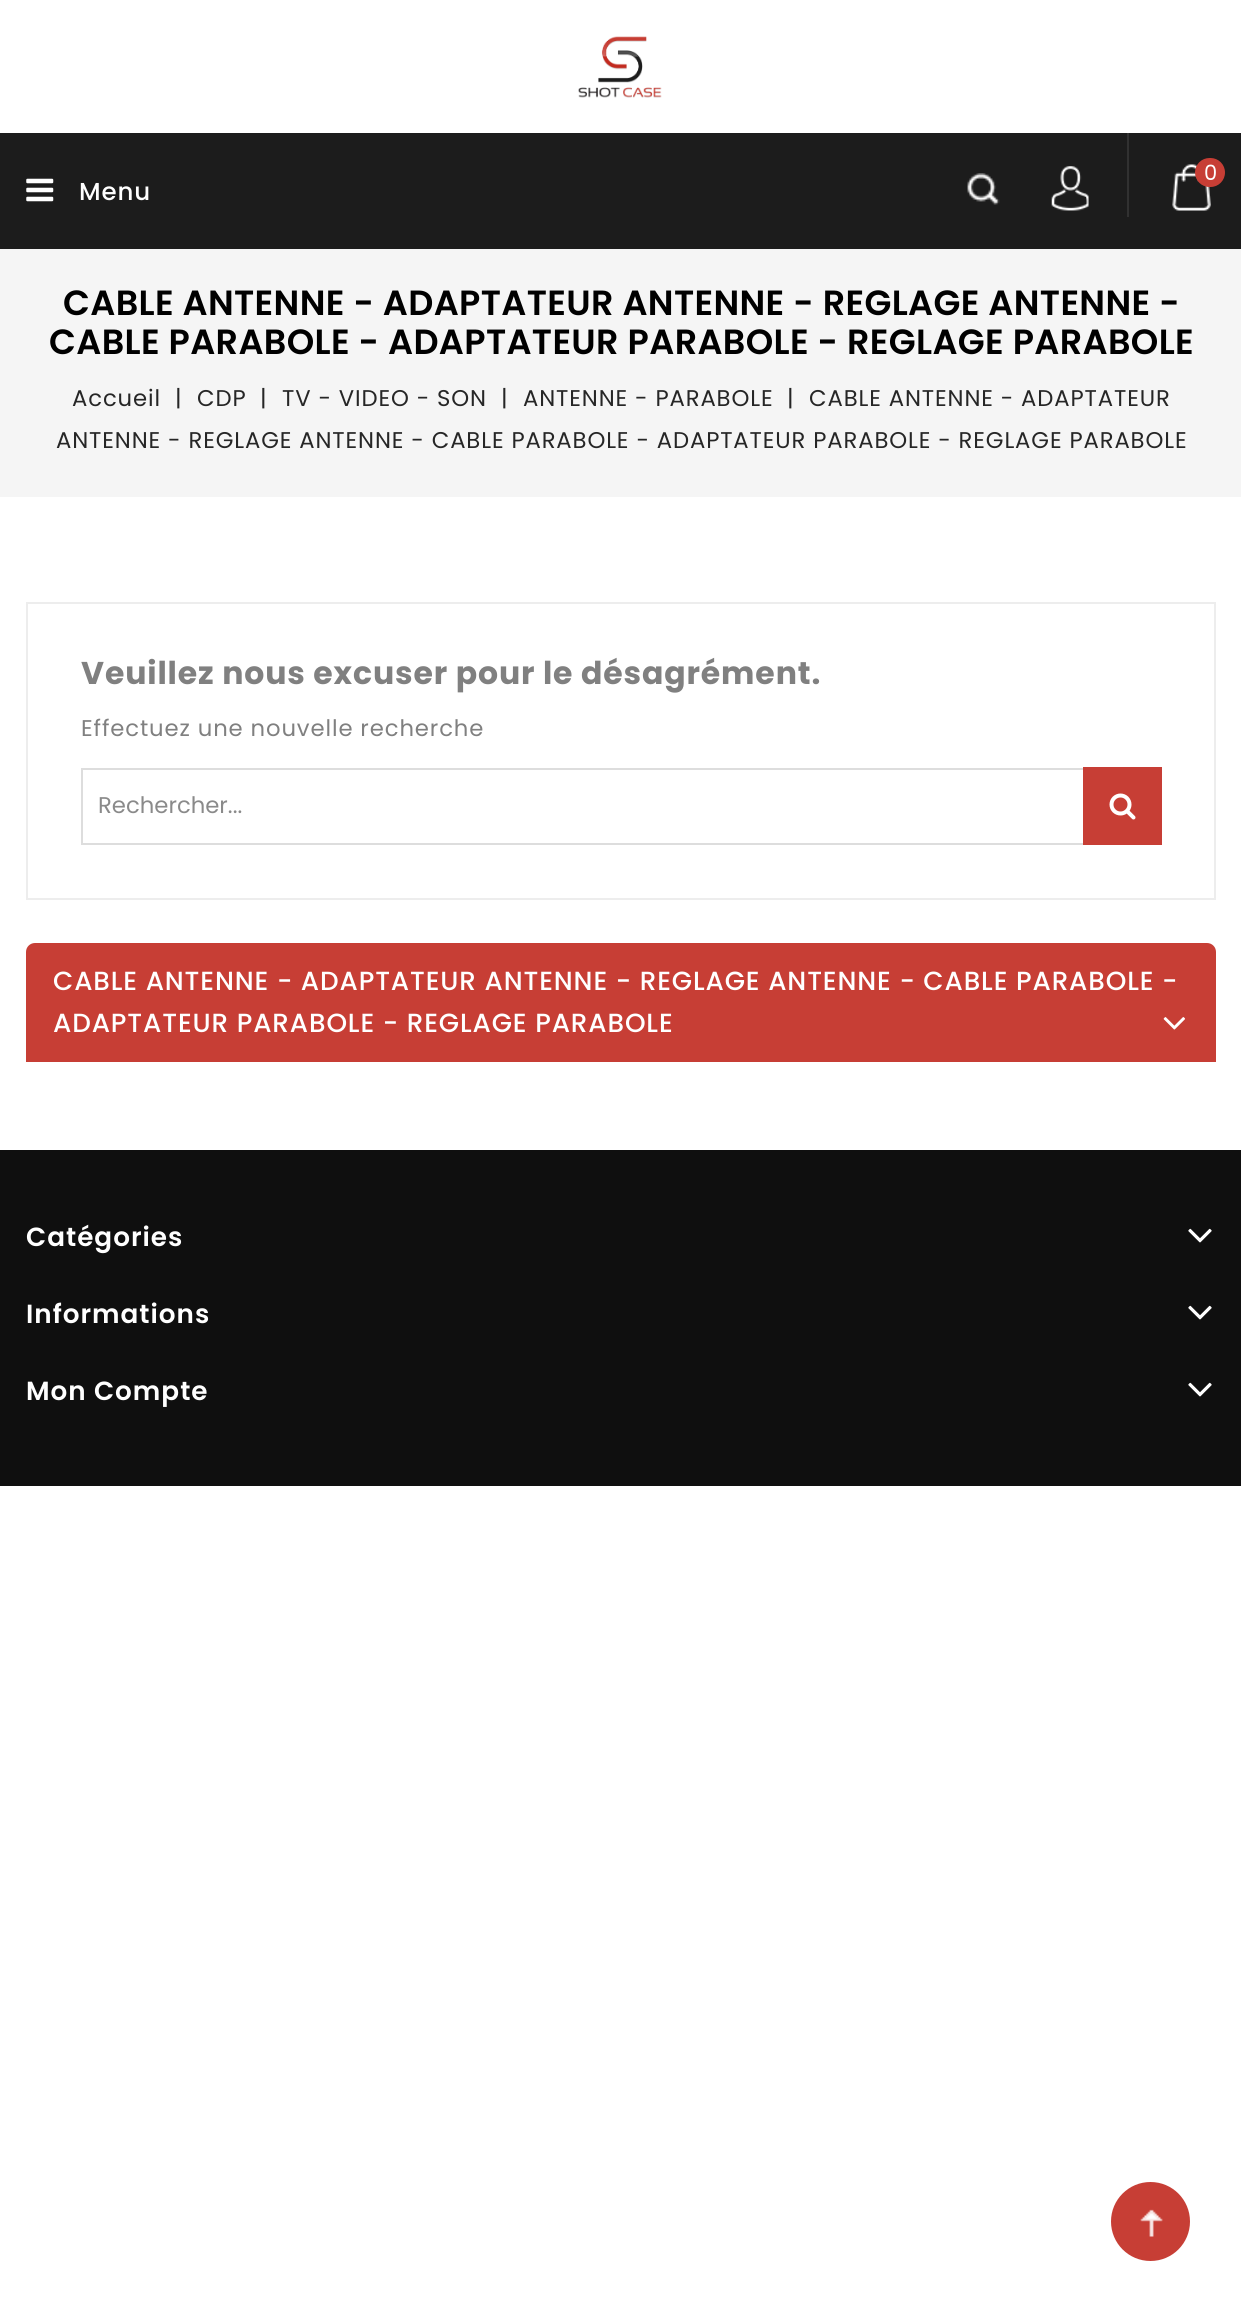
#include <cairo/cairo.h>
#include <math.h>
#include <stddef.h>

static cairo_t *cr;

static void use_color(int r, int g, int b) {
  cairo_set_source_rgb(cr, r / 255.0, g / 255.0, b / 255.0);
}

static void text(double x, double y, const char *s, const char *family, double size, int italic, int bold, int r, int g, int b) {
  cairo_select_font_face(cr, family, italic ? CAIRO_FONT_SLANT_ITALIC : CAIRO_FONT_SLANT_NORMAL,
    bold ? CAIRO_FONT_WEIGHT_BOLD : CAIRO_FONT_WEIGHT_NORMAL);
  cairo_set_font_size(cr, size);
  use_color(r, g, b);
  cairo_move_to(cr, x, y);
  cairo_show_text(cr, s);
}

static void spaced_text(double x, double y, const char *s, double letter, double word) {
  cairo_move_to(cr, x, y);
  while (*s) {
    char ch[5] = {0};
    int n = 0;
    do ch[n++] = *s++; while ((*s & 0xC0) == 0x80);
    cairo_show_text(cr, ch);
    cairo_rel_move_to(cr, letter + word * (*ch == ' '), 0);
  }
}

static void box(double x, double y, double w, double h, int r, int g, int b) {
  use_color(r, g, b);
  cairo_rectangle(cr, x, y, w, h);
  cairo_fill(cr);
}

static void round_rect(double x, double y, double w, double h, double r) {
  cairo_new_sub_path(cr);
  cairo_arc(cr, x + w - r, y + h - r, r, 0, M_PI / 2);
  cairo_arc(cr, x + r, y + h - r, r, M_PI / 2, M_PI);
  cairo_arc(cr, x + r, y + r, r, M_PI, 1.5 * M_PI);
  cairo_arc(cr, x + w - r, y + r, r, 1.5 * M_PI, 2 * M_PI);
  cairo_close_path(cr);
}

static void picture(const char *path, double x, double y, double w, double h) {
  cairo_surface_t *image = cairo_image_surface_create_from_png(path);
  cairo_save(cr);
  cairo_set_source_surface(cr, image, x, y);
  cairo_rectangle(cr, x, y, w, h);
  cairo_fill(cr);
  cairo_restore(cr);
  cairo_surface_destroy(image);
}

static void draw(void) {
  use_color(255, 255, 255);
  cairo_paint(cr);
  box(0, 133, 1241, 116, 28, 28, 28);
  picture("img_01.png", 967, 173, 33, 32);
  box(1127, 133, 2, 84, 49, 49, 49);
  picture("img_02.png", 1051, 166, 38, 45);
  picture("img_03.png", 1172, 164, 39, 47);
  use_color(199, 62, 53);
  round_rect(1195, 158, 30, 29, 14.5);
  cairo_fill(cr);
  picture("img_04.png", 578, 36, 84, 62);
  picture("img_05.png", 26, 178, 28, 24);
  box(0, 249, 1241, 248, 245, 245, 245);
  cairo_rectangle(cr, 27, 603, 1188, 296);
  use_color(237, 237, 237);
  cairo_stroke(cr);
  cairo_rectangle(cr, 82, 769, 1079, 75);
  use_color(221, 221, 221);
  cairo_stroke(cr);
  box(1083, 767, 79, 78, 199, 62, 53);
  picture("img_06.png", 1109, 793, 27, 27);
  cairo_new_path(cr);
  cairo_move_to(cr, 35, 943);
  cairo_line_to(cr, 1207, 943);
  cairo_curve_to(cr, 1212, 943, 1216, 947, 1216, 952);
  cairo_line_to(cr, 1216, 1062);
  cairo_line_to(cr, 26, 1062);
  cairo_line_to(cr, 26, 952);
  cairo_curve_to(cr, 26, 947, 30, 943, 35, 943);
  cairo_close_path(cr);
  cairo_fill(cr);
  picture("img_07.png", 1163, 1017, 22, 13);
  box(0, 1150, 1241, 336, 15, 15, 15);
  picture("img_08.png", 1188, 1228, 24, 15);
  picture("img_08.png", 1188, 1305, 24, 15);
  picture("img_08.png", 1188, 1382, 24, 15);
  use_color(199, 62, 53);
  cairo_arc(cr, 1150.5, 2221.5, 39.5, 0, 2 * M_PI);
  cairo_fill(cr);
  picture("img_09.png", 1140, 2209, 23, 28);
  cairo_select_font_face(cr, "Poppins", CAIRO_FONT_SLANT_NORMAL, CAIRO_FONT_WEIGHT_NORMAL);
  cairo_set_font_size(cr, 21);
  use_color(255, 255, 255);
  spaced_text(1204, 180, "0", 1, 0);
  cairo_select_font_face(cr, "Poppins Medium", CAIRO_FONT_SLANT_NORMAL, CAIRO_FONT_WEIGHT_NORMAL);
  cairo_set_font_size(cr, 24.5);
  spaced_text(79, 200, "Menu", 0.88, 0);
  cairo_select_font_face(cr, "Poppins SemiBold", CAIRO_FONT_SLANT_NORMAL, CAIRO_FONT_WEIGHT_NORMAL);
  cairo_set_font_size(cr, 35);
  use_color(0, 0, 0);
  spaced_text(63, 315, "CABLE ANTENNE - ADAPTATEUR ANTENNE - REGLAGE ANTENNE -", 0.35, 0);
  spaced_text(49, 354, "CABLE PARABOLE - ADAPTATEUR PARABOLE - REGLAGE PARABOLE", 0.35, 0);
  cairo_select_font_face(cr, "Poppins", CAIRO_FONT_SLANT_NORMAL, CAIRO_FONT_WEIGHT_NORMAL);
  cairo_set_font_size(cr, 22.75);
  use_color(38, 38, 38);
  spaced_text(72, 406, "Accueil", 0.88, 0);
  spaced_text(175, 406, "|", 0.88, 0);
  spaced_text(197, 406, "CDP", 0.88, 0);
  spaced_text(260, 406, "|", 0.88, 0);
  spaced_text(282, 406, "TV - VIDEO - SON", 0.88, 0);
  spaced_text(501, 406, "|", 0.88, 0);
  spaced_text(523, 406, "ANTENNE - PARABOLE", 0.88, 0);
  spaced_text(787, 406, "|", 0.88, 0);
  spaced_text(809, 406, "CABLE ANTENNE - ADAPTATEUR", 0.88, 0);
  spaced_text(56, 448, "ANTENNE - REGLAGE ANTENNE - CABLE PARABOLE - ADAPTATEUR PARABOLE - REGLAGE PARABOLE", 0.88, 0);
  cairo_select_font_face(cr, "Poppins", CAIRO_FONT_SLANT_NORMAL, CAIRO_FONT_WEIGHT_BOLD);
  cairo_set_font_size(cr, 31.5);
  use_color(128, 128, 128);
  spaced_text(81, 684, "Veuillez nous excuser pour le désagrément.", 0.88, 0);
  cairo_select_font_face(cr, "Poppins", CAIRO_FONT_SLANT_NORMAL, CAIRO_FONT_WEIGHT_NORMAL);
  cairo_set_font_size(cr, 22.75);
  spaced_text(81, 736, "Effectuez une nouvelle recherche", 0.88, 0);
  text(98, 813, "Rechercher...", "Poppins", 22.75, 0, 0, 138, 138, 138);
  cairo_select_font_face(cr, "Poppins Medium", CAIRO_FONT_SLANT_NORMAL, CAIRO_FONT_WEIGHT_NORMAL);
  cairo_set_font_size(cr, 26.25);
  use_color(255, 255, 255);
  spaced_text(53, 990, "CABLE ANTENNE - ADAPTATEUR ANTENNE - REGLAGE ANTENNE - CABLE PARABOLE -", 0.88, 0);
  spaced_text(53, 1032, "ADAPTATEUR PARABOLE - REGLAGE PARABOLE", 0.88, 0);
  cairo_select_font_face(cr, "Poppins SemiBold", CAIRO_FONT_SLANT_NORMAL, CAIRO_FONT_WEIGHT_NORMAL);
  spaced_text(26, 1246, "Catégories", 1, 0);
  spaced_text(26, 1323, "Informations", 1, 0);
  spaced_text(26, 1400, "Mon Compte", 1, 0);
}

int main(void) {
  cairo_surface_t *surface = cairo_image_surface_create(CAIRO_FORMAT_RGB24, 1241, 2312);
  cr = cairo_create(surface);
  cairo_font_options_t *options = cairo_font_options_create();
  cairo_font_options_set_hint_metrics(options, CAIRO_HINT_METRICS_OFF);
  cairo_font_options_set_hint_style(options, CAIRO_HINT_STYLE_NONE);
  cairo_set_font_options(cr, options);
  cairo_set_miter_limit(cr, 4);
  draw();
  cairo_surface_write_to_png(surface, "out.png");
  cairo_font_options_destroy(options);
  cairo_destroy(cr);
  cairo_surface_destroy(surface);
  return 0;
}
